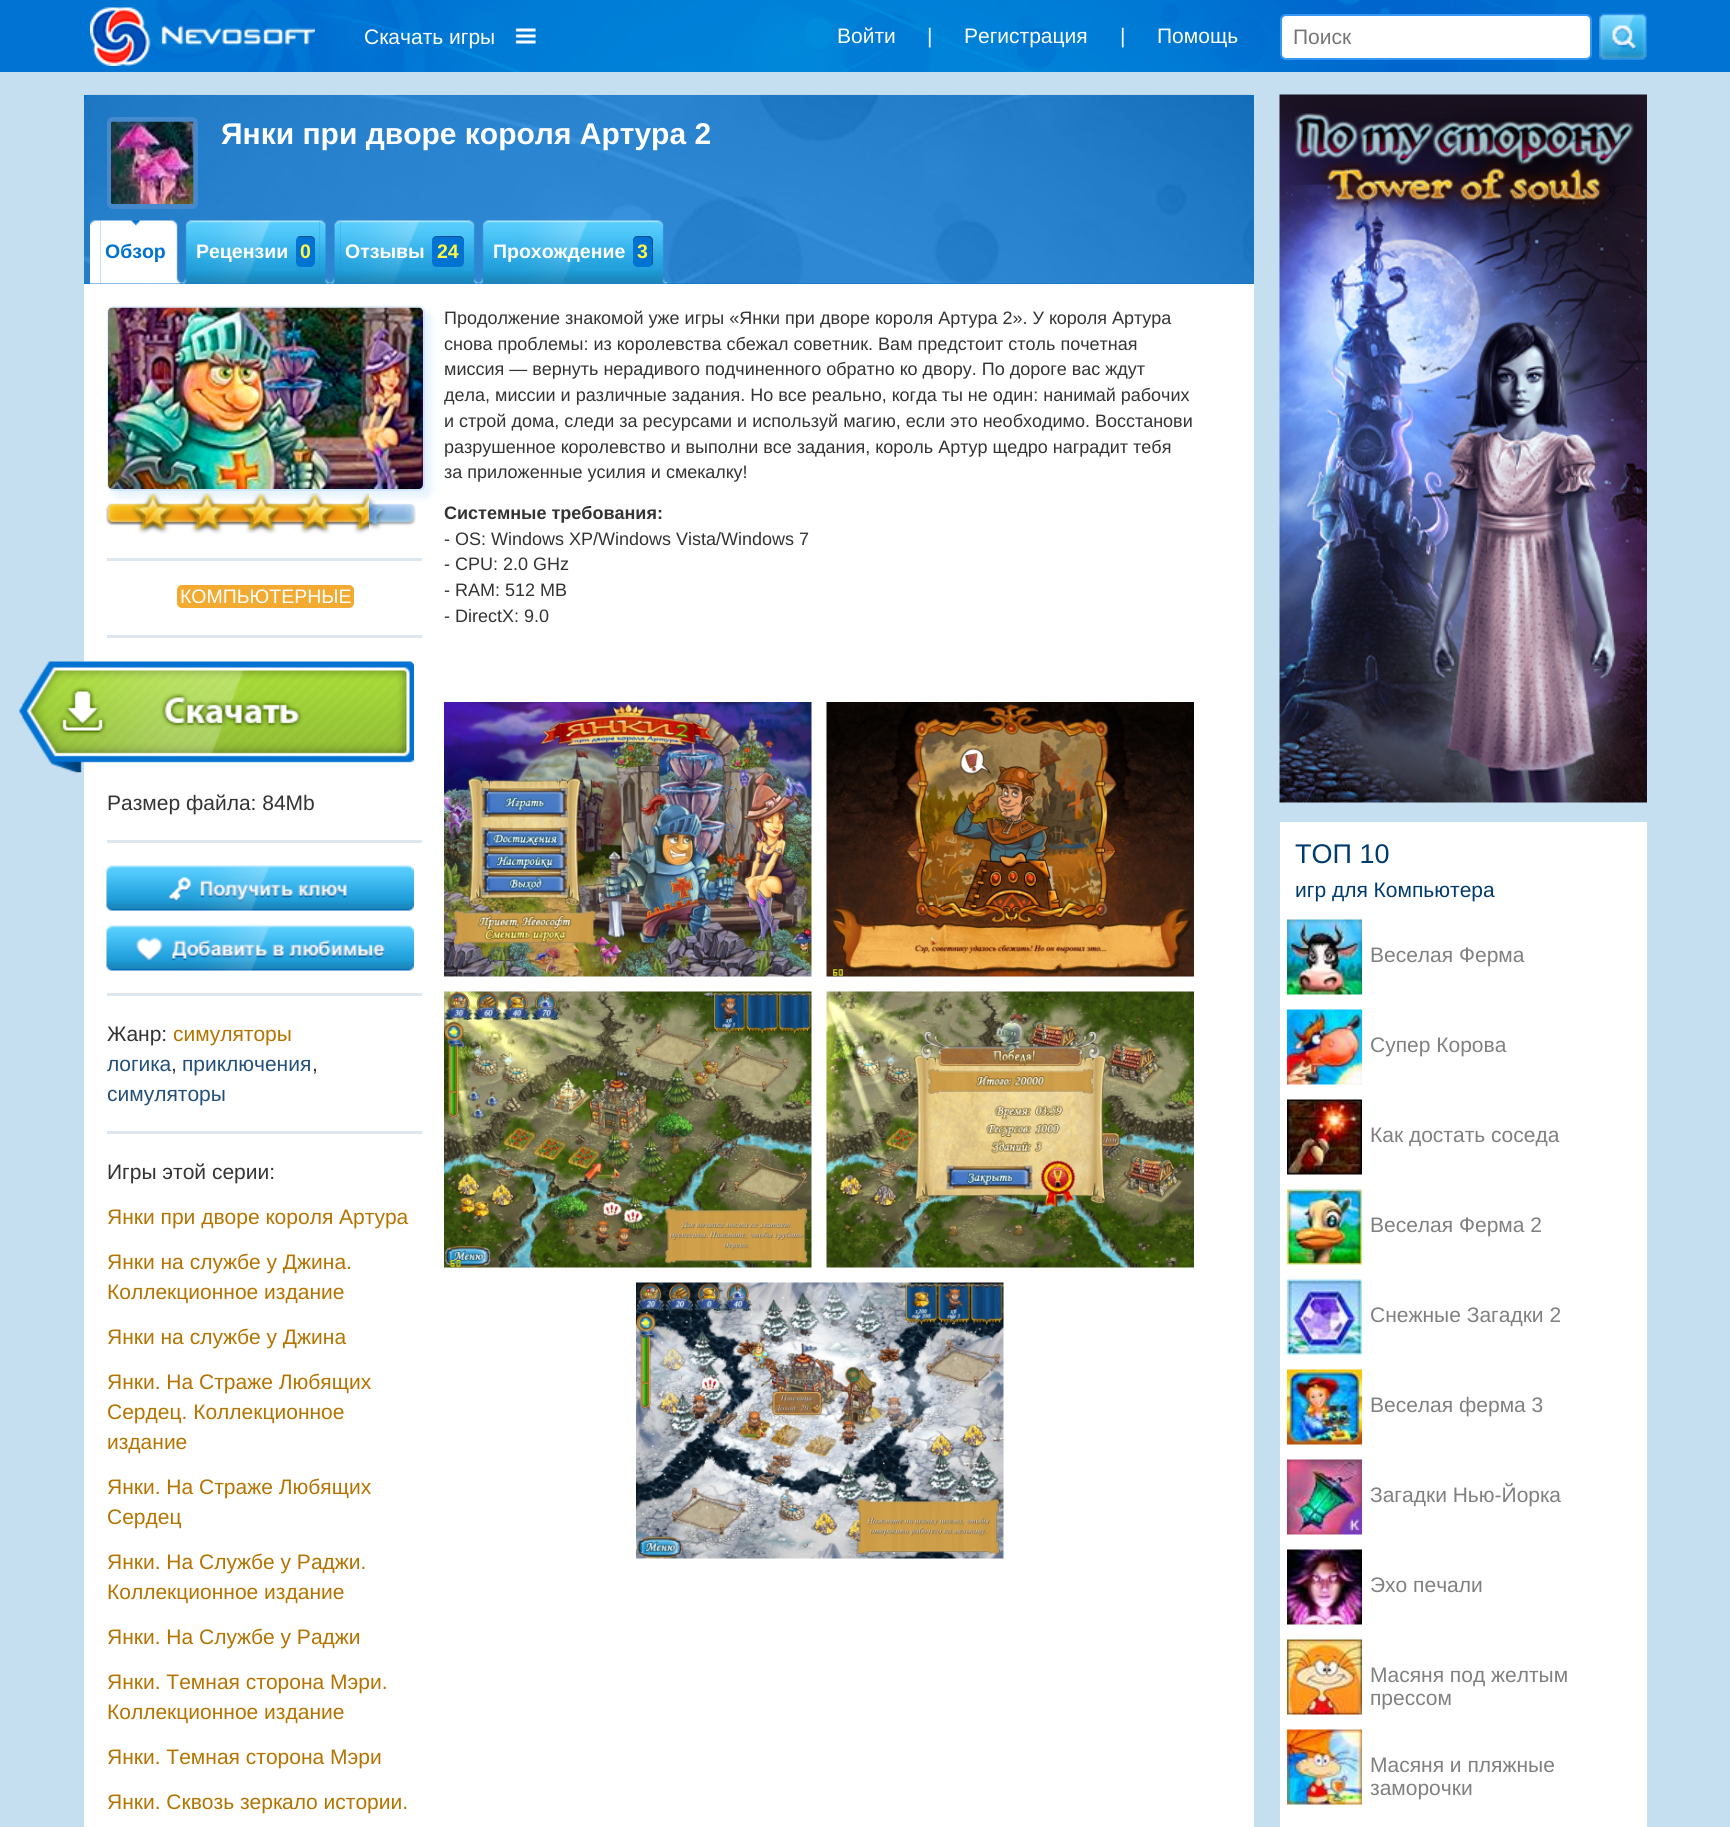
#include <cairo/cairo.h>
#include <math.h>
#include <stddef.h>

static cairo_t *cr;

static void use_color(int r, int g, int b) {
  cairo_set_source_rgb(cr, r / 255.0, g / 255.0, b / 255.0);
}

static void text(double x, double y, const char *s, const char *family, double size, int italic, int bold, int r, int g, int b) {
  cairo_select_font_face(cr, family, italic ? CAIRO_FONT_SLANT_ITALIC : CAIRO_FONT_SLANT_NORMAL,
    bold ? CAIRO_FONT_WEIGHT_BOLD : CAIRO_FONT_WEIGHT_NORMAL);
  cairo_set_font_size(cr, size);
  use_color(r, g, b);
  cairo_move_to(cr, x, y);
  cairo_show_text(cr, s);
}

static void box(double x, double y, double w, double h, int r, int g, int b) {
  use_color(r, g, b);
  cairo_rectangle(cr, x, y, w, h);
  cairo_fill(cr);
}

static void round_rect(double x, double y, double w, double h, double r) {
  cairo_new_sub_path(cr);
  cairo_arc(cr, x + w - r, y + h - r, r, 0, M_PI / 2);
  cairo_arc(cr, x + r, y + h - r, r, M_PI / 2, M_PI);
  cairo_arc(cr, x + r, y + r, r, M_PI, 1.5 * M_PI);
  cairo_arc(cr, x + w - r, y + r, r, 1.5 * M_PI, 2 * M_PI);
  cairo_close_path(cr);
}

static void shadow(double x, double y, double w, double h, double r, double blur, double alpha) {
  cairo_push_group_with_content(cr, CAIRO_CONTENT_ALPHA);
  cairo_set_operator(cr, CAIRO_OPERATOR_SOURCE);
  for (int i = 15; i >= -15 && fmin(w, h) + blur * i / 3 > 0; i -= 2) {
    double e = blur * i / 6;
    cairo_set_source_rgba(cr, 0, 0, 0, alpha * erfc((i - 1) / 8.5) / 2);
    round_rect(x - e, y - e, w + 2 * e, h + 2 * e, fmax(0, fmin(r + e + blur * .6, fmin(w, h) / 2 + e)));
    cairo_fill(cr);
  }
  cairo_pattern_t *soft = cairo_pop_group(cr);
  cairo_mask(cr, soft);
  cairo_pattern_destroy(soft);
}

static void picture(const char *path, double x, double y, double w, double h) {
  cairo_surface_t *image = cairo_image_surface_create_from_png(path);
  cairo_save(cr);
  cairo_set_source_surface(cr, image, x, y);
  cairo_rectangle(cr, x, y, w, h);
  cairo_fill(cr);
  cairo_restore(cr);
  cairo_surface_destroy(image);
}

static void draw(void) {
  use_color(198, 223, 240);
  cairo_paint(cr);
  box(0, 0, 1730, 72, 0, 115, 211);
  picture("img_01.png", 121, 0, 1434, 72);
  picture("img_02.png", 90, 7, 225, 59);
  picture("img_03.png", 515, 28, 21, 16);
  use_color(255, 255, 255);
  round_rect(1281, 15, 310, 44, 5);
  cairo_fill_preserve(cr);
  use_color(54, 152, 244);
  cairo_stroke(cr);
  picture("img_04.png", 1599, 13, 48, 47);
  box(84, 95, 1170, 189, 0, 114, 210);
  picture("img_05.png", 84, 94, 1170, 190);
  round_rect(109.5, 119.5, 86, 87, 3.5);
  use_color(70, 137, 205);
  cairo_set_line_width(cr, 5);
  cairo_stroke(cr);
  picture("img_06.png", 111, 121, 83, 83);
  picture("img_07.png", 90, 220, 11, 64);
  picture("img_08.png", 100, 220, 71, 64);
  picture("img_09.png", 171, 220, 11, 64);
  picture("img_10.png", 181, 220, 11, 64);
  picture("img_11.png", 192, 220, 128, 64);
  use_color(0, 114, 210);
  round_rect(296, 236, 19, 31, 5);
  cairo_fill(cr);
  use_color(0, 79, 146);
  cairo_set_fill_rule(cr, CAIRO_FILL_RULE_EVEN_ODD);
  cairo_new_path(cr);
  cairo_move_to(cr, 300, 237);
  cairo_line_to(cr, 309, 237);
  cairo_curve_to(cr, 315, 237, 315, 240.5, 315, 245.5);
  cairo_line_to(cr, 315, 241);
  cairo_curve_to(cr, 315, 238, 313, 236, 310, 236);
  cairo_line_to(cr, 301, 236);
  cairo_curve_to(cr, 299, 236, 297.5, 237, 296.5, 238.5);
  cairo_curve_to(cr, 297, 237.5, 298, 237, 300, 237);
  cairo_close_path(cr);
  cairo_move_to(cr, 315, 259.5);
  cairo_line_to(cr, 315, 263.5);
  cairo_close_path(cr);
  cairo_fill(cr);
  picture("img_12.png", 319, 220, 11, 64);
  picture("img_13.png", 330, 220, 11, 64);
  picture("img_14.png", 340, 220, 128, 64);
  use_color(0, 114, 210);
  round_rect(432, 236, 32, 31, 5);
  cairo_fill(cr);
  use_color(0, 79, 146);
  cairo_set_fill_rule(cr, CAIRO_FILL_RULE_WINDING);
  cairo_new_path(cr);
  cairo_move_to(cr, 436, 237);
  cairo_line_to(cr, 459, 237);
  cairo_curve_to(cr, 461, 237, 464, 239, 464, 242);
  cairo_curve_to(cr, 464, 236, 460.5, 236, 455.5, 236);
  cairo_line_to(cr, 440.5, 236);
  cairo_curve_to(cr, 435.5, 236, 432, 236, 432, 242);
  cairo_curve_to(cr, 432, 239, 434, 237, 436, 237);
  cairo_close_path(cr);
  cairo_fill(cr);
  picture("img_15.png", 468, 220, 11, 64);
  picture("img_16.png", 478, 220, 11, 64);
  picture("img_17.png", 489, 220, 168, 64);
  use_color(0, 114, 210);
  round_rect(633, 236, 20, 31, 5);
  cairo_fill(cr);
  use_color(0, 79, 146);
  cairo_set_fill_rule(cr, CAIRO_FILL_RULE_EVEN_ODD);
  cairo_new_path(cr);
  cairo_move_to(cr, 638, 237);
  cairo_curve_to(cr, 652, 237, 652, 235, 652, 250);
  cairo_curve_to(cr, 652, 254, 652.5, 261.5, 651.5, 265.5);
  cairo_curve_to(cr, 652.5, 264.5, 653, 263.5, 653, 262);
  cairo_line_to(cr, 653, 241);
  cairo_curve_to(cr, 653, 238, 651, 236, 648, 236);
  cairo_line_to(cr, 638, 236);
  cairo_curve_to(cr, 635, 236, 633, 238, 633, 241);
  cairo_line_to(cr, 633, 245);
  cairo_curve_to(cr, 633, 242, 633, 237, 638, 237);
  cairo_close_path(cr);
  cairo_move_to(cr, 633, 263);
  cairo_line_to(cr, 633, 260);
  cairo_close_path(cr);
  cairo_fill(cr);
  picture("img_18.png", 657, 220, 11, 64);
  box(84, 284, 1170, 1543, 255, 255, 255);
  picture("img_19.png", 444, 702, 368, 275);
  picture("img_20.png", 826, 702, 368, 275);
  picture("img_21.png", 444, 991, 368, 277);
  picture("img_22.png", 826, 991, 368, 277);
  picture("img_23.png", 636, 1282, 368, 277);
  use_color(77, 162, 241);
  shadow(113, 312, 318, 185, 6, 4, 0.15);
  round_rect(108, 307, 316, 183, 5);
  cairo_set_source_rgba(cr, 0.302, 0.635, 0.945, 0.15);
  cairo_set_line_width(cr, 2);
  cairo_stroke(cr);
  picture("img_24.png", 108, 307, 315, 182);
  picture("img_25.png", 106, 497, 310, 33);
  picture("img_26.png", 106, 493, 263, 41);
  box(107, 558, 315, 3, 222, 231, 237);
  use_color(242, 170, 49);
  round_rect(177, 585, 177, 23, 5);
  cairo_fill(cr);
  box(107, 635, 315, 3, 222, 231, 237);
  picture("img_27.png", 19, 661, 395, 112);
  box(107, 840, 315, 3, 222, 231, 237);
  picture("img_28.png", 106, 865, 308, 46);
  picture("img_29.png", 106, 925, 308, 46);
  box(107, 993, 315, 3, 222, 231, 237);
  box(107, 1131, 315, 3, 222, 231, 237);
  picture("img_30.png", 1279, 94, 368, 709);
  box(1280, 822, 367, 1005, 255, 255, 255);
  picture("img_31.png", 1287, 919, 75, 76);
  picture("img_32.png", 1287, 1009, 75, 76);
  picture("img_33.png", 1287, 1099, 75, 76);
  picture("img_34.png", 1287, 1189, 75, 76);
  picture("img_35.png", 1287, 1279, 75, 76);
  picture("img_36.png", 1287, 1369, 75, 76);
  picture("img_37.png", 1287, 1459, 75, 76);
  picture("img_38.png", 1287, 1549, 75, 76);
  picture("img_39.png", 1287, 1639, 75, 76);
  picture("img_40.png", 1287, 1729, 75, 76);
  text(364, 44, "Скачать игры", "Liberation Sans", 21, 0, 0, 255, 255, 255);
  text(837, 43, "Войти", "Liberation Sans", 21, 0, 0, 255, 255, 255);
  text(927, 43, "|", "Liberation Sans", 21, 0, 0, 255, 255, 255);
  text(964, 43, "Регистрация", "Liberation Sans", 21, 0, 0, 255, 255, 255);
  text(1120, 43, "|", "Liberation Sans", 21, 0, 0, 255, 255, 255);
  text(1157, 43, "Помощь", "Liberation Sans", 21, 0, 0, 255, 255, 255);
  text(1293, 44, "Поиск", "Liberation Sans", 21, 0, 0, 117, 117, 117);
  text(221, 144, "Янки при дворе короля Артура 2", "Liberation Sans", 30, 0, 1, 255, 255, 255);
  text(105, 258, "Обзор", "Liberation Sans", 19.5, 0, 1, 0, 114, 210);
  text(196, 258, "Рецензии", "Liberation Sans", 19.5, 0, 1, 255, 255, 255);
  text(300, 258, "0", "Liberation Sans", 19.5, 0, 1, 255, 248, 68);
  text(345, 258, "Отзывы", "Liberation Sans", 19.5, 0, 1, 255, 255, 255);
  text(437, 258, "24", "Liberation Sans", 19.5, 0, 1, 255, 248, 68);
  text(493, 258, "Прохождение", "Liberation Sans", 19.5, 0, 1, 255, 255, 255);
  text(637, 258, "3", "Liberation Sans", 19.5, 0, 1, 255, 248, 68);
  text(444, 324, "Продолжение знакомой уже игры «Янки при дворе короля Артура 2». У короля Артура", "Liberation Sans", 18, 0, 0, 51, 51, 51);
  text(444, 350, "снова проблемы: из королевства сбежал советник. Вам предстоит столь почетная", "Liberation Sans", 18, 0, 0, 51, 51, 51);
  text(444, 375, "миссия — вернуть нерадивого подчиненного обратно ко двору. По дороге вас ждут", "Liberation Sans", 18, 0, 0, 51, 51, 51);
  text(444, 401, "дела, миссии и различные задания. Но все реально, когда ты не один: нанимай рабочих", "Liberation Sans", 18, 0, 0, 51, 51, 51);
  text(444, 427, "и строй дома, следи за ресурсами и используй магию, если это необходимо. Восстанови", "Liberation Sans", 18, 0, 0, 51, 51, 51);
  text(444, 453, "разрушенное королевство и выполни все задания, король Артур щедро наградит тебя", "Liberation Sans", 18, 0, 0, 51, 51, 51);
  text(444, 478, "за приложенные усилия и смекалку!", "Liberation Sans", 18, 0, 0, 51, 51, 51);
  text(444, 519, "Системные требования:", "Liberation Sans", 18, 0, 1, 51, 51, 51);
  text(444, 545, "- OS: Windows XP/Windows Vista/Windows 7", "Liberation Sans", 18, 0, 0, 51, 51, 51);
  text(444, 570, "- CPU: 2.0 GHz", "Liberation Sans", 18, 0, 0, 51, 51, 51);
  text(444, 596, "- RAM: 512 MB", "Liberation Sans", 18, 0, 0, 51, 51, 51);
  text(444, 622, "- DirectX: 9.0", "Liberation Sans", 18, 0, 0, 51, 51, 51);
  text(180, 603, "КОМПЬЮТЕРНЫЕ", "Liberation Sans", 19.5, 0, 0, 255, 255, 255);
  text(107, 810, "Размер файла: 84Mb", "Liberation Sans", 21, 0, 0, 51, 51, 51);
  text(107, 1041, "Жанр:", "Liberation Sans", 21, 0, 0, 51, 51, 51);
  text(173, 1041, "симуляторы", "Liberation Sans", 21, 0, 0, 181, 115, 0);
  text(107, 1071, "логика", "Liberation Sans", 21, 0, 0, 35, 80, 123);
  text(171, 1071, ",", "Liberation Sans", 21, 0, 0, 51, 51, 51);
  text(182, 1071, "приключения", "Liberation Sans", 21, 0, 0, 35, 80, 123);
  text(312, 1071, ",", "Liberation Sans", 21, 0, 0, 51, 51, 51);
  text(107, 1101, "симуляторы", "Liberation Sans", 21, 0, 0, 35, 80, 123);
  text(107, 1179, "Игры этой серии:", "Liberation Sans", 21, 0, 0, 51, 51, 51);
  text(107, 1224, "Янки при дворе короля Артура", "Liberation Sans", 21, 0, 0, 181, 115, 0);
  text(107, 1269, "Янки на службе у Джина.", "Liberation Sans", 21, 0, 0, 181, 115, 0);
  text(107, 1299, "Коллекционное издание", "Liberation Sans", 21, 0, 0, 181, 115, 0);
  text(107, 1344, "Янки на службе у Джина", "Liberation Sans", 21, 0, 0, 181, 115, 0);
  text(107, 1389, "Янки. На Страже Любящих", "Liberation Sans", 21, 0, 0, 181, 115, 0);
  text(107, 1419, "Сердец. Коллекционное", "Liberation Sans", 21, 0, 0, 181, 115, 0);
  text(107, 1449, "издание", "Liberation Sans", 21, 0, 0, 181, 115, 0);
  text(107, 1494, "Янки. На Страже Любящих", "Liberation Sans", 21, 0, 0, 181, 115, 0);
  text(107, 1524, "Сердец", "Liberation Sans", 21, 0, 0, 181, 115, 0);
  text(107, 1569, "Янки. На Службе у Раджи.", "Liberation Sans", 21, 0, 0, 181, 115, 0);
  text(107, 1599, "Коллекционное издание", "Liberation Sans", 21, 0, 0, 181, 115, 0);
  text(107, 1644, "Янки. На Службе у Раджи", "Liberation Sans", 21, 0, 0, 181, 115, 0);
  text(107, 1689, "Янки. Темная сторона Мэри.", "Liberation Sans", 21, 0, 0, 181, 115, 0);
  text(107, 1719, "Коллекционное издание", "Liberation Sans", 21, 0, 0, 181, 115, 0);
  text(107, 1764, "Янки. Темная сторона Мэри", "Liberation Sans", 21, 0, 0, 181, 115, 0);
  text(107, 1809, "Янки. Сквозь зеркало истории.", "Liberation Sans", 21, 0, 0, 181, 115, 0);
  text(1295, 863, "ТОП 10", "Liberation Sans", 27, 0, 0, 0, 59, 109);
  text(1295, 897, "игр для Компьютера", "Liberation Sans", 21, 0, 0, 0, 59, 109);
  text(1370, 962, "Веселая Ферма", "Liberation Sans", 21, 0, 0, 128, 128, 128);
  text(1370, 1052, "Супер Корова", "Liberation Sans", 21, 0, 0, 128, 128, 128);
  text(1370, 1142, "Как достать соседа", "Liberation Sans", 21, 0, 0, 128, 128, 128);
  text(1370, 1232, "Веселая Ферма 2", "Liberation Sans", 21, 0, 0, 128, 128, 128);
  text(1370, 1322, "Снежные Загадки 2", "Liberation Sans", 21, 0, 0, 128, 128, 128);
  text(1370, 1412, "Веселая ферма 3", "Liberation Sans", 21, 0, 0, 128, 128, 128);
  text(1370, 1502, "Загадки Нью-Йорка", "Liberation Sans", 21, 0, 0, 128, 128, 128);
  text(1370, 1592, "Эхо печали", "Liberation Sans", 21, 0, 0, 128, 128, 128);
  text(1370, 1682, "Масяня под желтым", "Liberation Sans", 21, 0, 0, 128, 128, 128);
  text(1370, 1705, "прессом", "Liberation Sans", 21, 0, 0, 128, 128, 128);
  text(1370, 1772, "Масяня и пляжные", "Liberation Sans", 21, 0, 0, 128, 128, 128);
  text(1370, 1795, "заморочки", "Liberation Sans", 21, 0, 0, 128, 128, 128);
}

int main(void) {
  cairo_surface_t *surface = cairo_image_surface_create(CAIRO_FORMAT_RGB24, 1730, 1827);
  cr = cairo_create(surface);
  cairo_font_options_t *options = cairo_font_options_create();
  cairo_font_options_set_hint_metrics(options, CAIRO_HINT_METRICS_OFF);
  cairo_font_options_set_hint_style(options, CAIRO_HINT_STYLE_NONE);
  cairo_set_font_options(cr, options);
  cairo_set_miter_limit(cr, 4);
  draw();
  cairo_surface_write_to_png(surface, "out.png");
  cairo_font_options_destroy(options);
  cairo_destroy(cr);
  cairo_surface_destroy(surface);
  return 0;
}
